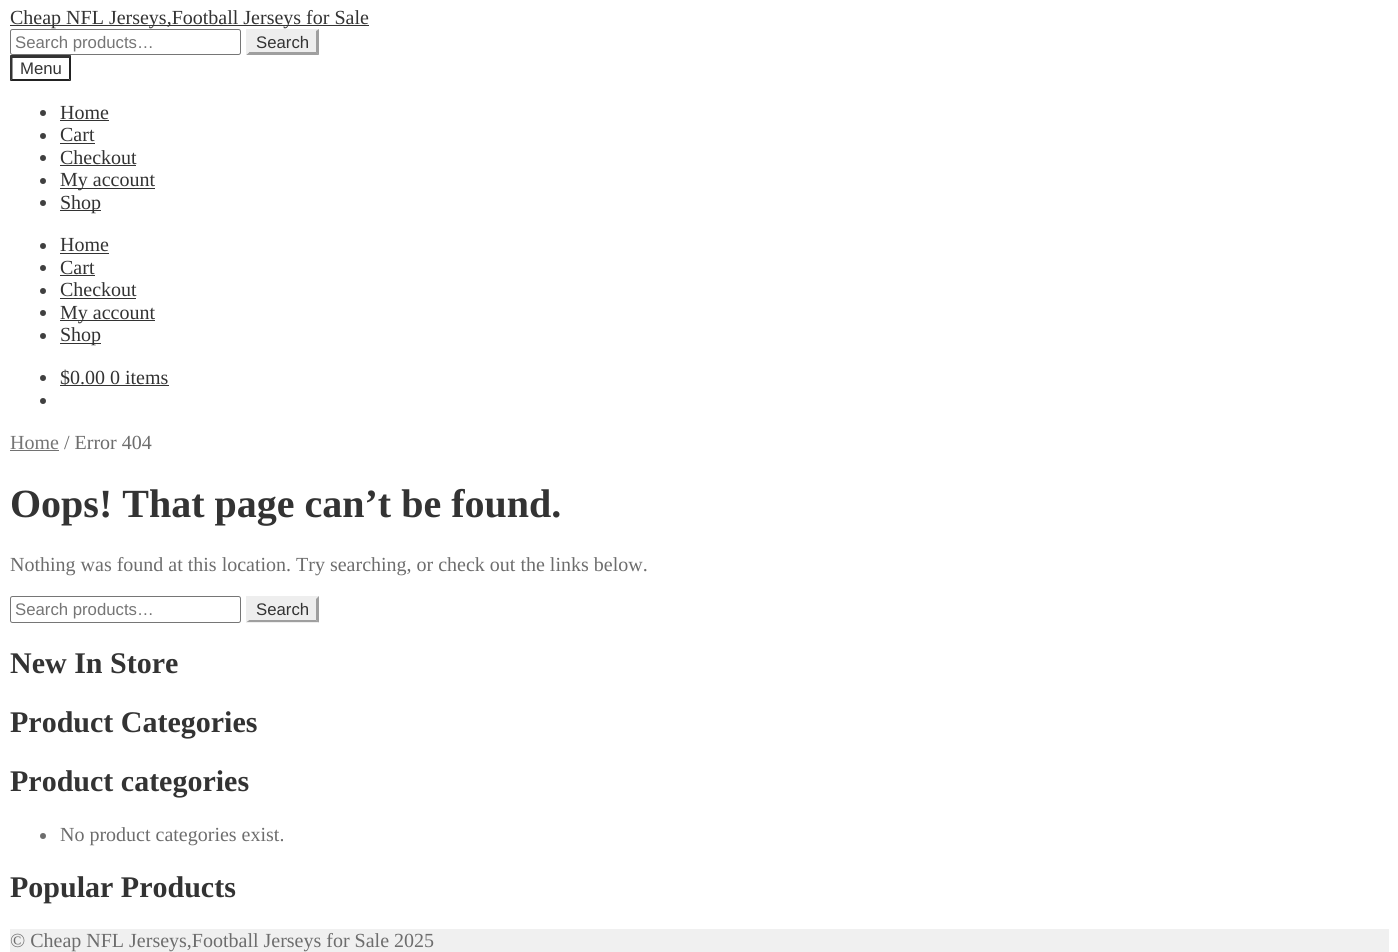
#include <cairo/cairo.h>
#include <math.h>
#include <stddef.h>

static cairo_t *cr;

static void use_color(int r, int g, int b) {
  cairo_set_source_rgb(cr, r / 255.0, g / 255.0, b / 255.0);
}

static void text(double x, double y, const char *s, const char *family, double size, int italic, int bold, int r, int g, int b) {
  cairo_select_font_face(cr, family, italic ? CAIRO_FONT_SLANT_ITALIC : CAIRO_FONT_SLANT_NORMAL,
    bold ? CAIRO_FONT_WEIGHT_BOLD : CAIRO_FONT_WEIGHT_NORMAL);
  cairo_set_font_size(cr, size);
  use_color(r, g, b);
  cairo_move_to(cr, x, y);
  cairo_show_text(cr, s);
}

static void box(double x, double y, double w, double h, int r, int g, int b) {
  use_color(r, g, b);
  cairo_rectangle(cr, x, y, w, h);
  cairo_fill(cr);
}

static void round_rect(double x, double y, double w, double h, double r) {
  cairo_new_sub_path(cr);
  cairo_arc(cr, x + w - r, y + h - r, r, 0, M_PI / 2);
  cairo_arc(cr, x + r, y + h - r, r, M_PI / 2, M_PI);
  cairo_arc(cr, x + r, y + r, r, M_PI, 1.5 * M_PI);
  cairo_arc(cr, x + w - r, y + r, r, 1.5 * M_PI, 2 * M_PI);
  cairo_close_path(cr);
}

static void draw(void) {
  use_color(255, 255, 255);
  cairo_paint(cr);
  box(10, 25, 359, 1, 51, 51, 51);
  round_rect(10.5, 29.5, 230, 25, 2);
  use_color(118, 118, 118);
  cairo_set_line_width(cr, 1);
  cairo_stroke(cr);
  box(246, 29, 73, 26, 238, 238, 238);
  use_color(159, 159, 159);
  cairo_new_path(cr);
  cairo_move_to(cr, 319, 29);
  cairo_line_to(cr, 319, 55);
  cairo_line_to(cr, 316, 52.5);
  cairo_line_to(cr, 316, 31);
  cairo_close_path(cr);
  cairo_fill(cr);
  cairo_new_path(cr);
  cairo_move_to(cr, 319, 55);
  cairo_line_to(cr, 246, 55);
  cairo_line_to(cr, 249, 52);
  cairo_line_to(cr, 316, 52);
  cairo_close_path(cr);
  cairo_fill(cr);
  use_color(238, 238, 238);
  cairo_new_path(cr);
  cairo_move_to(cr, 246, 55);
  cairo_line_to(cr, 246, 29);
  cairo_line_to(cr, 249, 31);
  cairo_line_to(cr, 249, 52.5);
  cairo_close_path(cr);
  cairo_fill(cr);
  use_color(51, 51, 51);
  cairo_new_path(cr);
  cairo_move_to(cr, 10, 55);
  cairo_line_to(cr, 71, 55);
  cairo_line_to(cr, 69, 58);
  cairo_line_to(cr, 12, 58);
  cairo_close_path(cr);
  cairo_fill(cr);
  use_color(34, 34, 34);
  cairo_new_path(cr);
  cairo_move_to(cr, 71, 55);
  cairo_line_to(cr, 71, 81);
  cairo_line_to(cr, 69, 79);
  cairo_line_to(cr, 69, 57.5);
  cairo_close_path(cr);
  cairo_fill(cr);
  cairo_new_path(cr);
  cairo_move_to(cr, 71, 81);
  cairo_line_to(cr, 10, 81);
  cairo_line_to(cr, 12, 79);
  cairo_line_to(cr, 69, 79);
  cairo_close_path(cr);
  cairo_fill(cr);
  use_color(51, 51, 51);
  cairo_new_path(cr);
  cairo_move_to(cr, 10, 81);
  cairo_line_to(cr, 10, 55);
  cairo_line_to(cr, 12.5, 57.5);
  cairo_line_to(cr, 12.5, 79);
  cairo_close_path(cr);
  cairo_fill(cr);
  use_color(64, 64, 64);
  cairo_arc(cr, 43, 113, 3, 0, 2 * M_PI);
  cairo_fill(cr);
  box(60, 120, 49, 1, 51, 51, 51);
  use_color(64, 64, 64);
  cairo_arc(cr, 43, 136, 3, 0, 2 * M_PI);
  cairo_fill(cr);
  box(60, 143, 35, 1, 51, 51, 51);
  use_color(64, 64, 64);
  cairo_arc(cr, 43, 158, 3, 0, 2 * M_PI);
  cairo_fill(cr);
  box(60, 165, 76, 1, 51, 51, 51);
  use_color(64, 64, 64);
  cairo_arc(cr, 43, 181, 3, 0, 2 * M_PI);
  cairo_fill(cr);
  box(60, 188, 95, 1, 51, 51, 51);
  use_color(64, 64, 64);
  cairo_arc(cr, 43, 203, 3, 0, 2 * M_PI);
  cairo_fill(cr);
  box(60, 210, 41, 1, 51, 51, 51);
  use_color(64, 64, 64);
  cairo_arc(cr, 43, 246, 3, 0, 2 * M_PI);
  cairo_fill(cr);
  box(60, 253, 49, 1, 51, 51, 51);
  use_color(64, 64, 64);
  cairo_arc(cr, 43, 268, 3, 0, 2 * M_PI);
  cairo_fill(cr);
  box(60, 275, 35, 1, 51, 51, 51);
  use_color(64, 64, 64);
  cairo_arc(cr, 43, 291, 3, 0, 2 * M_PI);
  cairo_fill(cr);
  box(60, 298, 76, 1, 51, 51, 51);
  use_color(64, 64, 64);
  cairo_arc(cr, 43, 313, 3, 0, 2 * M_PI);
  cairo_fill(cr);
  box(60, 320, 95, 1, 51, 51, 51);
  use_color(64, 64, 64);
  cairo_arc(cr, 43, 336, 3, 0, 2 * M_PI);
  cairo_fill(cr);
  box(60, 343, 41, 1, 51, 51, 51);
  use_color(64, 64, 64);
  cairo_arc(cr, 43, 378, 3, 0, 2 * M_PI);
  cairo_fill(cr);
  box(60, 385, 109, 1, 51, 51, 51);
  use_color(64, 64, 64);
  cairo_arc(cr, 43, 401, 3, 0, 2 * M_PI);
  cairo_fill(cr);
  box(10, 450, 49, 1, 114, 114, 114);
  round_rect(10.5, 596.5, 230, 26, 2);
  use_color(118, 118, 118);
  cairo_stroke(cr);
  box(246, 596, 73, 27, 238, 238, 238);
  use_color(159, 159, 159);
  cairo_new_path(cr);
  cairo_move_to(cr, 319, 596);
  cairo_line_to(cr, 319, 622.5);
  cairo_line_to(cr, 316, 620);
  cairo_line_to(cr, 316, 599);
  cairo_close_path(cr);
  cairo_fill(cr);
  cairo_new_path(cr);
  cairo_move_to(cr, 319, 622);
  cairo_line_to(cr, 246, 622);
  cairo_line_to(cr, 249, 620);
  cairo_line_to(cr, 316, 620);
  cairo_close_path(cr);
  cairo_fill(cr);
  use_color(238, 238, 238);
  cairo_new_path(cr);
  cairo_move_to(cr, 246, 622.5);
  cairo_line_to(cr, 246, 596);
  cairo_line_to(cr, 249, 599);
  cairo_line_to(cr, 249, 620);
  cairo_close_path(cr);
  cairo_fill(cr);
  use_color(109, 109, 109);
  cairo_arc(cr, 43, 836, 3, 0, 2 * M_PI);
  cairo_fill(cr);
  box(10, 929, 1379, 23, 240, 240, 240);
  text(10, 24, "Cheap NFL Jerseys,Football Jerseys for Sale", "Liberation Serif", 20, 0, 0, 51, 51, 51);
  text(15, 48, "Search products…", "Liberation Sans", 16.75, 0, 0, 117, 117, 117);
  text(256, 48, "Search", "Liberation Sans", 16.75, 0, 0, 51, 51, 51);
  text(20, 74, "Menu", "Liberation Sans", 16.75, 0, 0, 51, 51, 51);
  text(60, 119, "Home", "Liberation Serif", 20, 0, 0, 51, 51, 51);
  text(60, 141, "Cart", "Liberation Serif", 20, 0, 0, 51, 51, 51);
  text(60, 164, "Checkout", "Liberation Serif", 20, 0, 0, 51, 51, 51);
  text(60, 186, "My account", "Liberation Serif", 20, 0, 0, 51, 51, 51);
  text(60, 209, "Shop", "Liberation Serif", 20, 0, 0, 51, 51, 51);
  text(60, 251, "Home", "Liberation Serif", 20, 0, 0, 51, 51, 51);
  text(60, 274, "Cart", "Liberation Serif", 20, 0, 0, 51, 51, 51);
  text(60, 296, "Checkout", "Liberation Serif", 20, 0, 0, 51, 51, 51);
  text(60, 319, "My account", "Liberation Serif", 20, 0, 0, 51, 51, 51);
  text(60, 341, "Shop", "Liberation Serif", 20, 0, 0, 51, 51, 51);
  text(60, 384, "$0.00 0 items", "Liberation Serif", 20, 0, 0, 51, 51, 51);
  text(10, 449, "Home", "Liberation Serif", 20, 0, 0, 117, 117, 117);
  text(64, 449, "/ Error 404", "Liberation Serif", 20, 0, 0, 109, 109, 109);
  text(10, 517, "Oops! That page can’t be found.", "Liberation Serif", 40, 0, 1, 51, 51, 51);
  text(10, 571, "Nothing was found at this location. Try searching, or check out the links below.", "Liberation Serif", 20, 0, 0, 109, 109, 109);
  text(15, 615, "Search products…", "Liberation Sans", 16.75, 0, 0, 117, 117, 117);
  text(256, 615, "Search", "Liberation Sans", 16.75, 0, 0, 51, 51, 51);
  text(10, 673, "New In Store", "Liberation Serif", 30, 0, 1, 51, 51, 51);
  text(10, 732, "Product Categories", "Liberation Serif", 30, 0, 1, 51, 51, 51);
  text(10, 791, "Product categories", "Liberation Serif", 30, 0, 1, 51, 51, 51);
  text(60, 841, "No product categories exist.", "Liberation Serif", 20, 0, 0, 109, 109, 109);
  text(10, 897, "Popular Products", "Liberation Serif", 30, 0, 1, 51, 51, 51);
  text(10, 947, "© Cheap NFL Jerseys,Football Jerseys for Sale 2025", "Liberation Serif", 20, 0, 0, 109, 109, 109);
}

int main(void) {
  cairo_surface_t *surface = cairo_image_surface_create(CAIRO_FORMAT_RGB24, 1398, 952);
  cr = cairo_create(surface);
  cairo_font_options_t *options = cairo_font_options_create();
  cairo_font_options_set_hint_metrics(options, CAIRO_HINT_METRICS_OFF);
  cairo_font_options_set_hint_style(options, CAIRO_HINT_STYLE_NONE);
  cairo_set_font_options(cr, options);
  cairo_set_miter_limit(cr, 4);
  draw();
  cairo_surface_write_to_png(surface, "out.png");
  cairo_font_options_destroy(options);
  cairo_destroy(cr);
  cairo_surface_destroy(surface);
  return 0;
}
